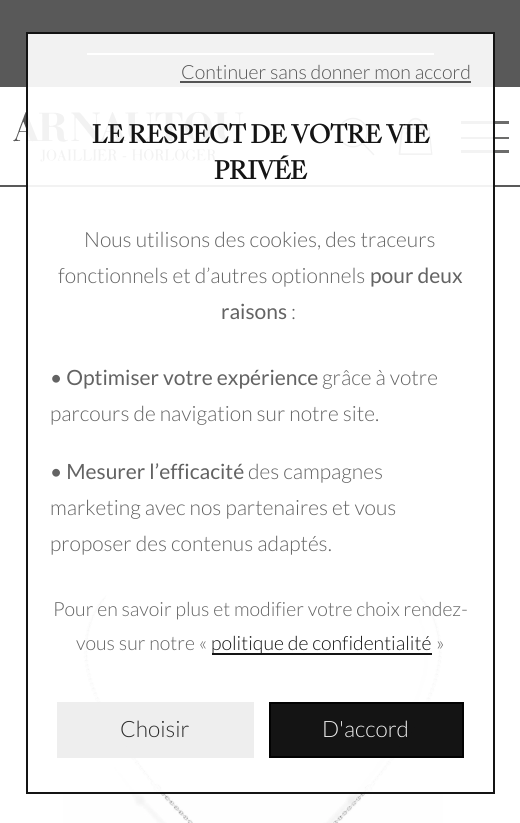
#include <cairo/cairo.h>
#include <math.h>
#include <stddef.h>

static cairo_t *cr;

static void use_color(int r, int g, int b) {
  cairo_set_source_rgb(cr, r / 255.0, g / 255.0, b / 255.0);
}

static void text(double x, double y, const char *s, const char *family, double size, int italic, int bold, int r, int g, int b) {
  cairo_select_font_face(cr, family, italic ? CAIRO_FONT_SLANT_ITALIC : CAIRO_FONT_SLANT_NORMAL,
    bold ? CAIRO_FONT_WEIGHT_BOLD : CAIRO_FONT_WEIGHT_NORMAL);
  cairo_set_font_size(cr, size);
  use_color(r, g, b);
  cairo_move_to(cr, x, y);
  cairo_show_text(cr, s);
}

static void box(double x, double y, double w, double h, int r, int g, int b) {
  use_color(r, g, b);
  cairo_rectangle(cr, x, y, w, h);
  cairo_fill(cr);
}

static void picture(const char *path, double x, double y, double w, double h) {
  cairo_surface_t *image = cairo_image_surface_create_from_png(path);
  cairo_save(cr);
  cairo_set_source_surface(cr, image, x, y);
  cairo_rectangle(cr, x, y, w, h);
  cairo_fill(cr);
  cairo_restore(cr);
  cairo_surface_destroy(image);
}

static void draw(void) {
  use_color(255, 255, 255);
  cairo_paint(cr);
  box(0, 0, 520, 87, 89, 89, 89);
  box(87, 53, 347, 2, 255, 255, 255);
  box(0, 185, 520, 2, 89, 89, 89);
  picture("img_01.png", 13, 111, 231, 51);
  picture("img_02.png", 338, 117, 37, 39);
  picture("img_03.png", 398, 117, 35, 38);
  box(461, 121, 48, 3, 108, 108, 107);
  box(461, 137, 48, 2, 108, 108, 107);
  box(461, 150, 48, 3, 108, 108, 107);
  picture("img_04.png", 63, 594, 380, 229);
  cairo_set_source_rgba(cr, 1, 1, 1, 0.92);
  cairo_rectangle(cr, 26, 32, 469, 762);
  cairo_fill(cr);
  cairo_rectangle(cr, 27, 33, 467, 760);
  cairo_set_source_rgba(cr, 0, 0, 0, 0.92);
  cairo_stroke(cr);
  box(180, 81, 291, 2, 85, 85, 85);
  box(212, 653, 220, 2, 20, 20, 20);
  cairo_set_source_rgba(cr, 0.929, 0.929, 0.929, 0.92);
  cairo_rectangle(cr, 57, 702, 197, 56);
  cairo_fill(cr);
  cairo_set_source_rgba(cr, 0, 0, 0, 0.92);
  cairo_rectangle(cr, 270, 703, 193, 54);
  cairo_fill_preserve(cr);
  use_color(2, 2, 2);
  cairo_stroke(cr);
  text(181, 79, "Continuer sans donner mon accord", "Lato Light", 19.5, 0, 0, 85, 85, 85);
  text(92, 143, "LE RESPECT DE VOTRE VIE", "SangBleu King", 24, 0, 1, 20, 20, 20);
  text(214, 179, "PRIVÉE", "SangBleu King", 24, 0, 1, 20, 20, 20);
  text(84, 247, "Nous utilisons des cookies, des traceurs", "Lato Light", 21, 0, 0, 99, 99, 99);
  text(58, 283, "fonctionnels et d’autres optionnels", "Lato Light", 21, 0, 0, 99, 99, 99);
  text(370, 283, "pour deux", "Lato", 21, 0, 0, 99, 99, 99);
  text(221, 319, "raisons", "Lato", 21, 0, 0, 99, 99, 99);
  text(291, 319, ":", "Lato Light", 21, 0, 0, 99, 99, 99);
  text(50, 385, "• Optimiser votre expérience", "Lato", 21, 0, 0, 99, 99, 99);
  text(322, 385, "grâce à votre", "Lato Light", 21, 0, 0, 99, 99, 99);
  text(50, 421, "parcours de navigation sur notre site.", "Lato Light", 21, 0, 0, 99, 99, 99);
  text(50, 479, "• Mesurer l’efficacité", "Lato", 21, 0, 0, 99, 99, 99);
  text(248, 479, "des campagnes", "Lato Light", 21, 0, 0, 99, 99, 99);
  text(50, 515, "marketing avec nos partenaires et vous", "Lato Light", 21, 0, 0, 99, 99, 99);
  text(50, 551, "proposer des contenus adaptés.", "Lato Light", 21, 0, 0, 99, 99, 99);
  text(53, 616, "Pour en savoir plus et modifier votre choix rendez-", "Lato Light", 19.5, 0, 0, 99, 99, 99);
  text(76, 650, "vous sur notre «", "Lato Light", 19.5, 0, 0, 99, 99, 99);
  text(211, 650, "politique de confidentialité", "Lato Light", 19.5, 0, 0, 20, 20, 20);
  text(436, 650, "»", "Lato Light", 19.5, 0, 0, 99, 99, 99);
  text(120, 737, "Choisir", "Lato Light", 22.5, 0, 0, 44, 44, 44);
  text(322, 737, "D'accord", "Lato Light", 22.5, 0, 0, 236, 236, 236);
}

int main(void) {
  cairo_surface_t *surface = cairo_image_surface_create(CAIRO_FORMAT_RGB24, 520, 823);
  cr = cairo_create(surface);
  cairo_font_options_t *options = cairo_font_options_create();
  cairo_font_options_set_hint_metrics(options, CAIRO_HINT_METRICS_OFF);
  cairo_font_options_set_hint_style(options, CAIRO_HINT_STYLE_NONE);
  cairo_set_font_options(cr, options);
  cairo_set_miter_limit(cr, 4);
  draw();
  cairo_surface_write_to_png(surface, "out.png");
  cairo_font_options_destroy(options);
  cairo_destroy(cr);
  cairo_surface_destroy(surface);
  return 0;
}
